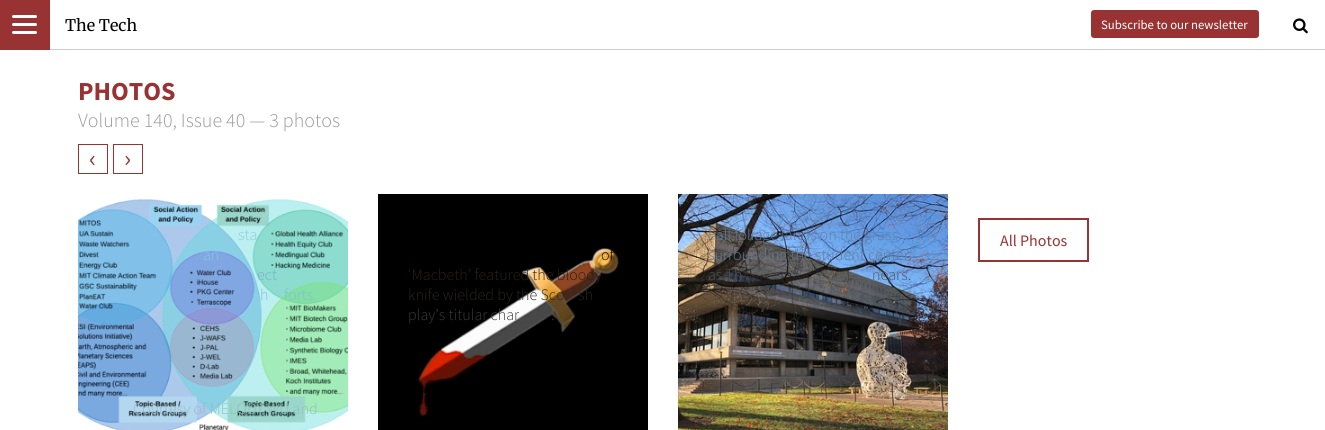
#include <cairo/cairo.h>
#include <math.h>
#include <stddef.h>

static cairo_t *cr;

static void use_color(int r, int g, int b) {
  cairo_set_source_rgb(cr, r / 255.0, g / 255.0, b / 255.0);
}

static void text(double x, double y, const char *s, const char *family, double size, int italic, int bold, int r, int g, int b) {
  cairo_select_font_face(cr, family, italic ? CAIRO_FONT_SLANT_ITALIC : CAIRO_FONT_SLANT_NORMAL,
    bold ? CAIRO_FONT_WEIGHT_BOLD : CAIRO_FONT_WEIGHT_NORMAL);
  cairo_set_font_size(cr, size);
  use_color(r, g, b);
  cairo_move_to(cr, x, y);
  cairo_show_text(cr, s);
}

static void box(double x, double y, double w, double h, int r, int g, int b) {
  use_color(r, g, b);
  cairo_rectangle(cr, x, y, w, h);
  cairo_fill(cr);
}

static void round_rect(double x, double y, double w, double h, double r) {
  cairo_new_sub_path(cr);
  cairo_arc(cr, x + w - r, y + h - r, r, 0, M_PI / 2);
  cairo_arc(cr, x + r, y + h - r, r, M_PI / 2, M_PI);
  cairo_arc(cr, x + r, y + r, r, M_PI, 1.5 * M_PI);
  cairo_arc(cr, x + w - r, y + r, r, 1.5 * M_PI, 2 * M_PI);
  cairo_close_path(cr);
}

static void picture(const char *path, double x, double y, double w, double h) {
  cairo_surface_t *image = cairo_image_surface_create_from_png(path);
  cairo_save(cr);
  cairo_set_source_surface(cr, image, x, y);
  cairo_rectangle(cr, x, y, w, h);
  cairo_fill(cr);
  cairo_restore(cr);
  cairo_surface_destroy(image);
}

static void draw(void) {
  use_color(255, 255, 255);
  cairo_paint(cr);
  box(50, 49, 1275, 1, 204, 204, 204);
  box(0, 0, 50, 50, 153, 51, 51);
  use_color(255, 255, 255);
  round_rect(12, 15, 25, 3, 1.5);
  cairo_fill(cr);
  round_rect(12, 23, 25, 3, 1.5);
  cairo_fill(cr);
  round_rect(12, 31, 25, 3, 1.5);
  cairo_fill(cr);
  use_color(153, 51, 51);
  round_rect(1091, 10, 168, 28, 3);
  cairo_fill(cr);
  picture("img_01.png", 1293, 18, 15, 16);
  cairo_rectangle(cr, 78.5, 144.5, 29, 29);
  cairo_set_line_width(cr, 1);
  cairo_stroke(cr);
  cairo_rectangle(cr, 113.5, 144.5, 29, 29);
  cairo_stroke(cr);
  picture("img_02.png", 78, 199, 270, 231);
  picture("img_03.png", 678, 194, 270, 236);
  cairo_rectangle(cr, 979, 219, 109, 42);
  cairo_set_line_width(cr, 2);
  cairo_stroke(cr);
  picture("img_04.png", 378, 194, 270, 236);
  text(65, 31, "The Tech", "Merriweather", 16, 0, 0, 0, 0, 0);
  text(1101, 29, "Subscribe to our newsletter", "Source Sans Pro", 12.75, 0, 0, 255, 255, 255);
  text(78, 100, "PHOTOS", "Source Sans Pro", 26, 0, 1, 153, 51, 51);
  text(78, 127, "Volume 140, Issue 40 — 3 photos", "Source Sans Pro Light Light", 20, 0, 0, 153, 153, 153);
  text(89, 167, "‹", "Source Sans Pro", 26, 0, 0, 153, 51, 51);
  text(124, 167, "›", "Source Sans Pro", 26, 0, 0, 153, 51, 51);
  text(238, 240, "sta", "Source Sans Pro Light Light", 16, 0, 0, 143, 204, 219);
  text(203, 260, "an", "Source Sans Pro Light Light", 16, 0, 0, 136, 194, 228);
  text(257, 280, "ect", "Source Sans Pro Light Light", 16, 0, 0, 121, 172, 211);
  text(260, 300, "h", "Source Sans Pro Light Light", 16, 0, 0, 131, 188, 215);
  text(284, 300, "forts.", "Source Sans Pro Light Light", 16, 0, 0, 131, 188, 215);
  text(133, 414, "Courtesy of MELODY WU and", "Source Sans Pro Light Light", 16, 0, 0, 145, 189, 193);
  text(708, 240, "Fall foliage lands on the grass", "Source Sans Pro Light Light", 16, 0, 0, 95, 126, 166);
  text(708, 260, "surrounding the student center", "Source Sans Pro Light Light", 16, 0, 0, 98, 122, 152);
  text(708, 280, "as Th", "Source Sans Pro Light Light", 16, 0, 0, 77, 87, 101);
  text(872, 280, "nears.", "Source Sans Pro Light Light", 16, 0, 0, 77, 87, 101);
  text(1000, 246, "All Photos", "Source Sans Pro", 16, 0, 0, 153, 51, 51);
  text(601, 260, "of", "Source Sans Pro Light Light", 16, 0, 0, 16, 12, 6);
  text(408, 280, "‘Macbeth’ featured the bloody", "Source Sans Pro Light Light", 16, 0, 0, 47, 32, 21);
  text(408, 300, "knife wielded by the Sco", "Source Sans Pro Light Light", 16, 0, 0, 44, 37, 28);
  text(578, 300, "sh", "Source Sans Pro Light Light", 16, 0, 0, 44, 37, 28);
  text(408, 320, "play’s titular char", "Source Sans Pro Light Light", 16, 0, 0, 59, 59, 59);
  text(551, 320, ".", "Source Sans Pro Light Light", 16, 0, 0, 59, 59, 59);
}

int main(void) {
  cairo_surface_t *surface = cairo_image_surface_create(CAIRO_FORMAT_RGB24, 1325, 430);
  cr = cairo_create(surface);
  cairo_font_options_t *options = cairo_font_options_create();
  cairo_font_options_set_hint_metrics(options, CAIRO_HINT_METRICS_OFF);
  cairo_font_options_set_hint_style(options, CAIRO_HINT_STYLE_NONE);
  cairo_set_font_options(cr, options);
  cairo_set_miter_limit(cr, 4);
  draw();
  cairo_surface_write_to_png(surface, "out.png");
  cairo_font_options_destroy(options);
  cairo_destroy(cr);
  cairo_surface_destroy(surface);
  return 0;
}
